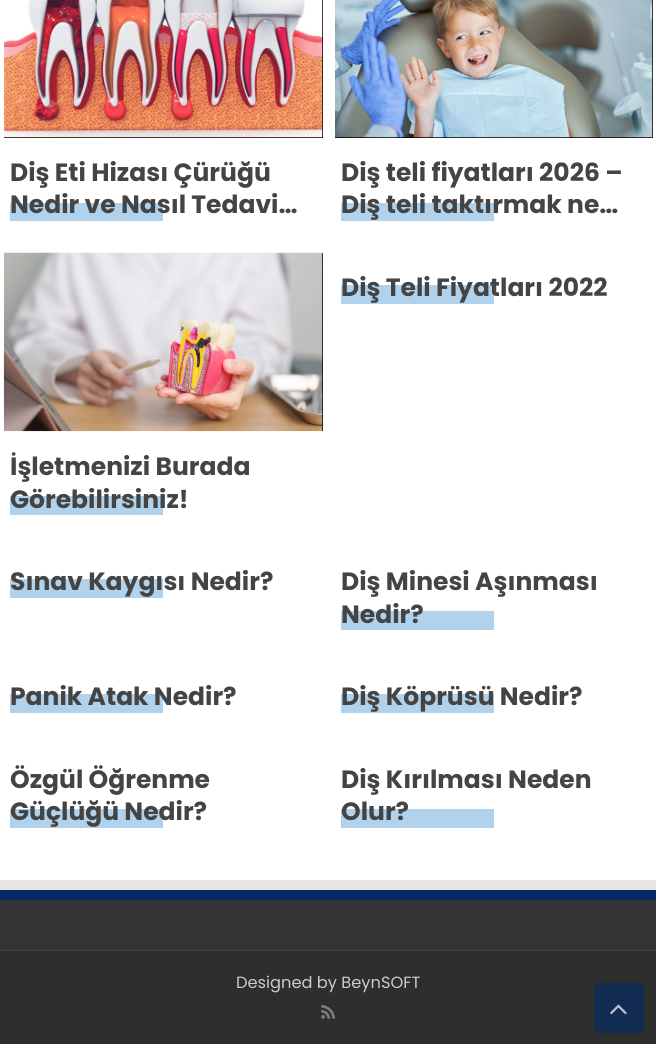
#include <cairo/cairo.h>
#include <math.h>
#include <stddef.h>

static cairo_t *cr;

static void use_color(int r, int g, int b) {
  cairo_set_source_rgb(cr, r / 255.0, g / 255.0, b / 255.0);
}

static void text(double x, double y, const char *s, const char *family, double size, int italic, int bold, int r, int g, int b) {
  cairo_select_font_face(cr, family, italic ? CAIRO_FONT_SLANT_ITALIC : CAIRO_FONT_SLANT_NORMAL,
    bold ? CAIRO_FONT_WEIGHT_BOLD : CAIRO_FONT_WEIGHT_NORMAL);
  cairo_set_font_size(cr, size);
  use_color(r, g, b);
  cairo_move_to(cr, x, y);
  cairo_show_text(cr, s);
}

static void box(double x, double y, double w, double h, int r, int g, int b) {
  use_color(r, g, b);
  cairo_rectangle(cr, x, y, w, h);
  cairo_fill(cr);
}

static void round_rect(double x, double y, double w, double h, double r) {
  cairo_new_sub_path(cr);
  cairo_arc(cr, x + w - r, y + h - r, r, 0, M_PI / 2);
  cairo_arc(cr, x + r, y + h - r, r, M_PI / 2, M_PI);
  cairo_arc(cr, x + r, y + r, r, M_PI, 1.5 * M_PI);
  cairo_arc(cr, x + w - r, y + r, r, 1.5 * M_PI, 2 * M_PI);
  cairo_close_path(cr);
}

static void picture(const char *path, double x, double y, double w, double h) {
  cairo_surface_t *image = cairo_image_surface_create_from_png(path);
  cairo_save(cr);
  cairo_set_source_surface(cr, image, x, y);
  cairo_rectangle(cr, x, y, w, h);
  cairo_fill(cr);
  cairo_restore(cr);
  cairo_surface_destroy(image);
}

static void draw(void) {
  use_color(255, 255, 255);
  cairo_paint(cr);
  box(4, 0, 319, 138, 0, 0, 0);
  picture("img_01.png", 3, 0, 320, 138);
  box(10, 203, 153, 18, 177, 210, 236);
  box(335, 0, 318, 138, 0, 0, 0);
  picture("img_02.png", 335, 0, 318, 138);
  box(341, 203, 153, 18, 177, 210, 236);
  box(341, 285, 153, 19, 177, 210, 236);
  box(322, 253, 1, 178, 0, 0, 0);
  picture("img_03.png", 3, 252, 320, 180);
  box(10, 496, 153, 19, 177, 210, 236);
  box(10, 579, 153, 19, 177, 210, 236);
  box(341, 611, 153, 19, 177, 210, 236);
  box(10, 694, 153, 19, 177, 210, 236);
  box(341, 694, 153, 19, 177, 210, 236);
  box(10, 809, 153, 19, 177, 210, 236);
  box(341, 809, 153, 19, 177, 210, 236);
  box(0, 880, 656, 10, 230, 230, 230);
  box(0, 900, 656, 50, 51, 51, 51);
  box(0, 890, 656, 10, 5, 41, 99);
  box(0, 951, 656, 93, 46, 46, 46);
  box(0, 950, 656, 1, 68, 68, 68);
  picture("img_04.png", 321, 1005, 14, 14);
  use_color(17, 43, 83);
  round_rect(594, 983, 50, 50, 6);
  cairo_fill(cr);
  picture("img_05.png", 610, 1004, 17, 11);
  text(10, 181, "Diş Eti Hizası Çürüğü", "Poppins", 25, 0, 1, 68, 68, 68);
  text(10, 213, "Nedir ve Nasıl Tedavi…", "Poppins", 25, 0, 1, 68, 68, 68);
  text(341, 181, "Diş teli fiyatları 2026 –", "Poppins", 25, 0, 1, 68, 68, 68);
  text(341, 213, "Diş teli taktırmak ne…", "Poppins", 25, 0, 1, 68, 68, 68);
  text(341, 296, "Diş Teli Fiyatları 2022", "Poppins", 25, 0, 1, 68, 68, 68);
  text(10, 475, "İşletmenizi Burada", "Poppins", 25, 0, 1, 68, 68, 68);
  text(10, 508, "Görebilirsiniz!", "Poppins", 25, 0, 1, 68, 68, 68);
  text(10, 590, "Sınav Kaygısı Nedir?", "Poppins", 25, 0, 1, 68, 68, 68);
  text(341, 590, "Diş Minesi Aşınması", "Poppins", 25, 0, 1, 68, 68, 68);
  text(341, 623, "Nedir?", "Poppins", 25, 0, 1, 68, 68, 68);
  text(10, 705, "Panik Atak Nedir?", "Poppins", 25, 0, 1, 68, 68, 68);
  text(341, 705, "Diş Köprüsü Nedir?", "Poppins", 25, 0, 1, 68, 68, 68);
  text(10, 788, "Özgül Öğrenme", "Poppins", 25, 0, 1, 68, 68, 68);
  text(10, 820, "Güçlüğü Nedir?", "Poppins", 25, 0, 1, 68, 68, 68);
  text(341, 788, "Diş Kırılması Neden", "Poppins", 25, 0, 1, 68, 68, 68);
  text(341, 820, "Olur?", "Poppins", 25, 0, 1, 68, 68, 68);
  text(236, 988, "Designed by BeynSOFT", "Poppins", 16.25, 0, 0, 204, 204, 204);
}

int main(void) {
  cairo_surface_t *surface = cairo_image_surface_create(CAIRO_FORMAT_RGB24, 656, 1044);
  cr = cairo_create(surface);
  cairo_font_options_t *options = cairo_font_options_create();
  cairo_font_options_set_hint_metrics(options, CAIRO_HINT_METRICS_OFF);
  cairo_font_options_set_hint_style(options, CAIRO_HINT_STYLE_NONE);
  cairo_set_font_options(cr, options);
  cairo_set_miter_limit(cr, 4);
  draw();
  cairo_surface_write_to_png(surface, "out.png");
  cairo_font_options_destroy(options);
  cairo_destroy(cr);
  cairo_surface_destroy(surface);
  return 0;
}
